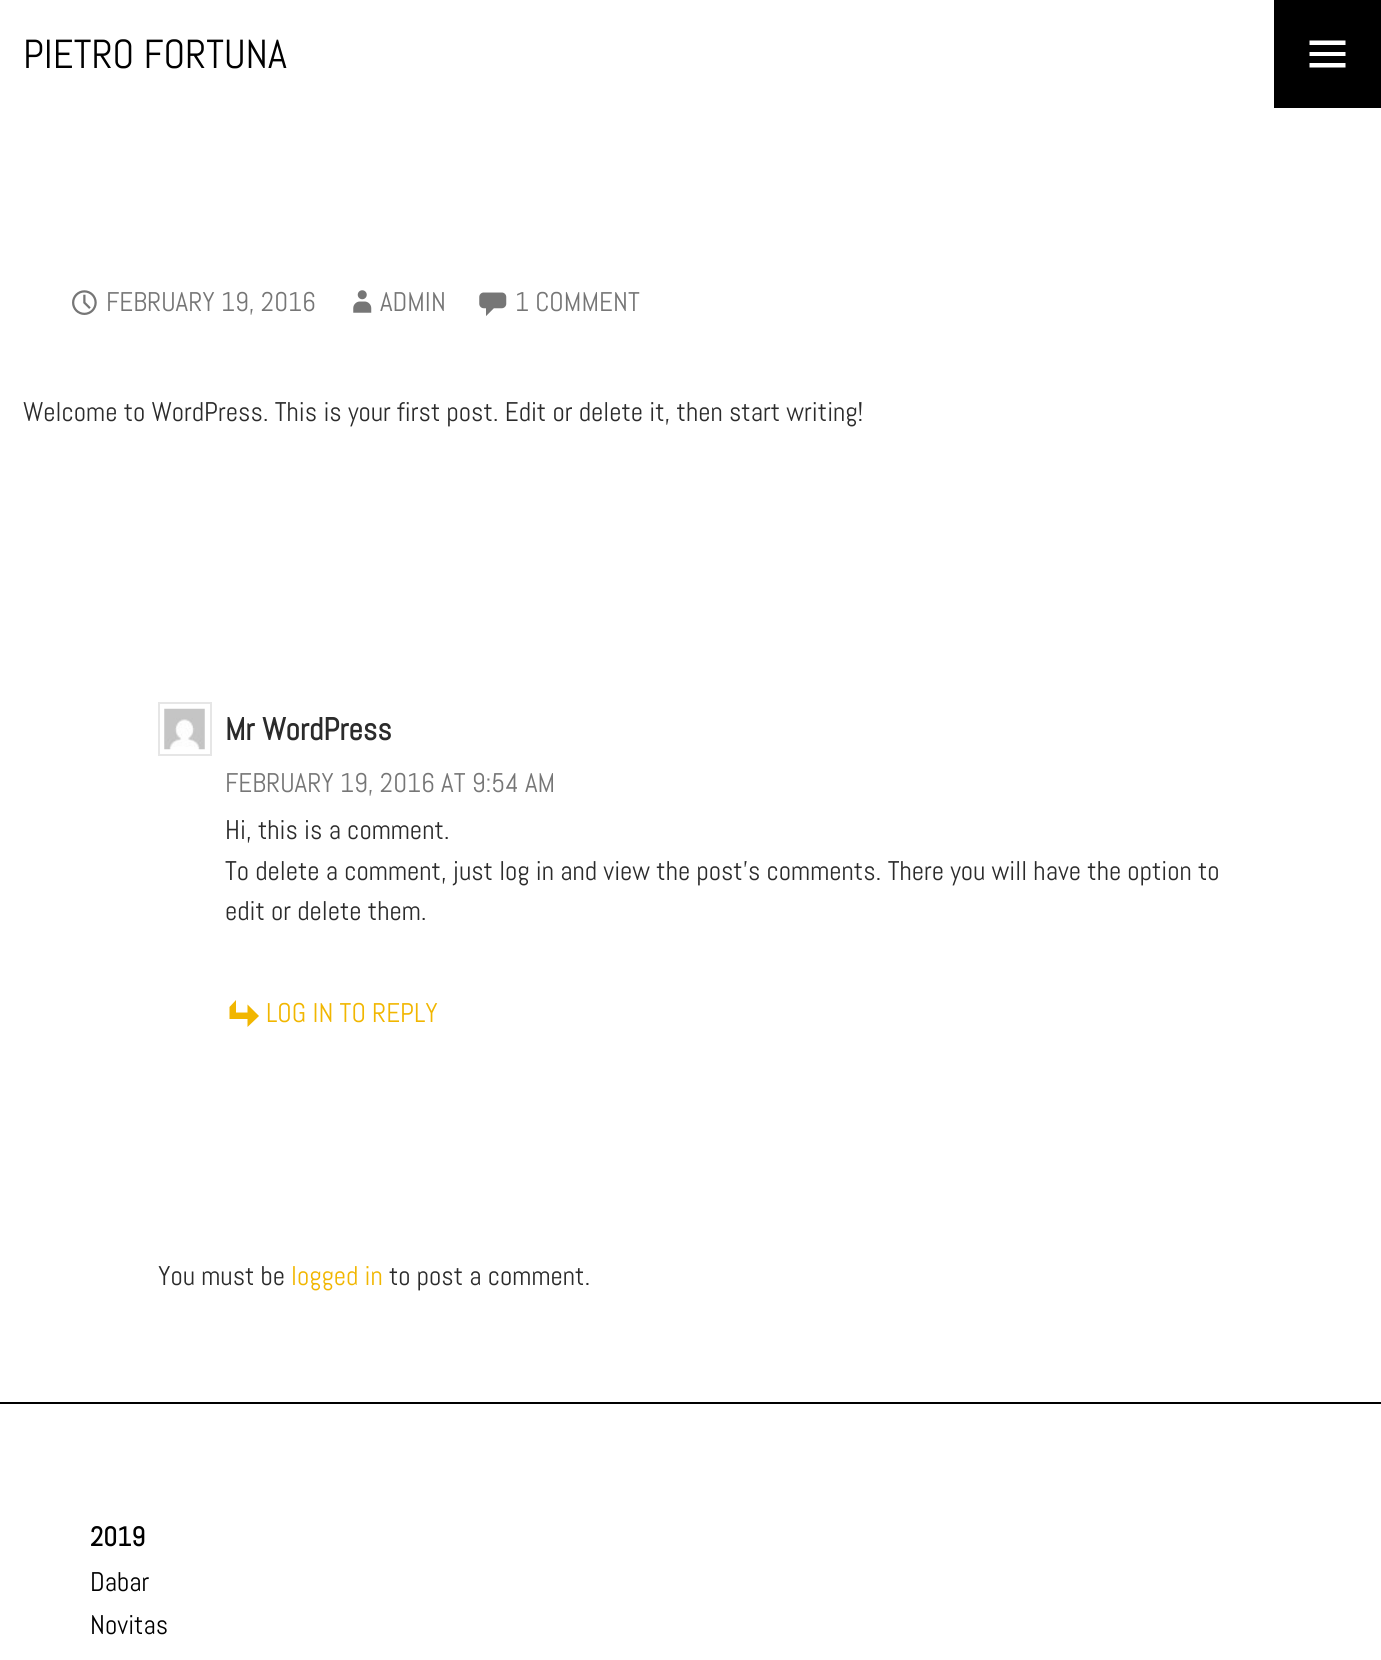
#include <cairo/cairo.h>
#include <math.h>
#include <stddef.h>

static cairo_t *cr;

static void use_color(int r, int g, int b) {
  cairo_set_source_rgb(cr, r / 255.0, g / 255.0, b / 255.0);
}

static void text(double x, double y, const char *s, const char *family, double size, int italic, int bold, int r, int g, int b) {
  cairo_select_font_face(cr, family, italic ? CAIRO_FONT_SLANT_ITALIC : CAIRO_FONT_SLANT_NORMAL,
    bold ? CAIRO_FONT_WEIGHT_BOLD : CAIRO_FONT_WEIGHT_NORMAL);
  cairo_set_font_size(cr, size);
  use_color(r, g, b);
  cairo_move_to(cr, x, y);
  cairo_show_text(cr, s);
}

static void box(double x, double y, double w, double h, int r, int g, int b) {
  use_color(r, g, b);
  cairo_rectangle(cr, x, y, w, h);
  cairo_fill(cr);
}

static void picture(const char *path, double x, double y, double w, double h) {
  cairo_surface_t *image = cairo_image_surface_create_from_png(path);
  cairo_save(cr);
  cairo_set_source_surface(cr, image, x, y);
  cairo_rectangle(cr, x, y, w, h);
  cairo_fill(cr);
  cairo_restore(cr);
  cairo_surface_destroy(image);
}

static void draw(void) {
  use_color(255, 255, 255);
  cairo_paint(cr);
  box(1274, 0, 107, 108, 0, 0, 0);
  use_color(255, 255, 255);
  cairo_new_path(cr);
  cairo_move_to(cr, 1309.5, 67.5);
  cairo_line_to(cr, 1309.5, 63);
  cairo_line_to(cr, 1345.5, 63);
  cairo_line_to(cr, 1345.5, 67.5);
  cairo_close_path(cr);
  cairo_move_to(cr, 1309.5, 56);
  cairo_line_to(cr, 1309.5, 52);
  cairo_line_to(cr, 1345.5, 52);
  cairo_line_to(cr, 1345.5, 56);
  cairo_close_path(cr);
  cairo_move_to(cr, 1309.5, 45);
  cairo_line_to(cr, 1309.5, 40.5);
  cairo_line_to(cr, 1345.5, 40.5);
  cairo_line_to(cr, 1345.5, 45);
  cairo_close_path(cr);
  cairo_fill(cr);
  picture("img_01.png", 72, 290, 25, 25);
  picture("img_02.png", 353, 290, 19, 23);
  picture("img_03.png", 479, 292, 28, 24);
  cairo_rectangle(cr, 159, 703, 52, 52);
  use_color(230, 230, 230);
  cairo_stroke(cr);
  picture("img_04.png", 164, 708, 41, 42);
  use_color(241, 182, 0);
  cairo_new_path(cr);
  cairo_move_to(cr, 229.5, 1019);
  cairo_line_to(cr, 229.5, 1007);
  cairo_line_to(cr, 236, 1000);
  cairo_line_to(cr, 236, 1012.5);
  cairo_line_to(cr, 247.5, 1012.5);
  cairo_line_to(cr, 247.5, 1004.5);
  cairo_line_to(cr, 259, 1016);
  cairo_line_to(cr, 247.5, 1027);
  cairo_line_to(cr, 247.5, 1019);
  cairo_close_path(cr);
  cairo_fill(cr);
  box(0, 1402, 1381, 2, 0, 0, 0);
  text(23, 68, "PIETRO FORTUNA", "Abel", 40.5, 0, 0, 0, 0, 0);
  text(106, 311, "FEBRUARY 19, 2016", "Abel", 27, 0, 0, 118, 118, 118);
  text(380, 311, "ADMIN", "Abel", 27, 0, 0, 118, 118, 118);
  text(515, 311, "1 COMMENT", "Abel", 27, 0, 0, 118, 118, 118);
  text(23, 421, "Welcome to WordPress. This is your first post. Edit or delete it, then start writing!", "Abel", 27, 0, 0, 43, 43, 43);
  text(225, 740, "Mr WordPress", "Abel", 31.5, 0, 1, 43, 43, 43);
  text(225, 792, "FEBRUARY 19, 2016 AT 9:54 AM", "Abel", 27, 0, 0, 118, 118, 118);
  text(225, 839, "Hi, this is a comment.", "Abel", 27, 0, 0, 43, 43, 43);
  text(225, 880, "To delete a comment, just log in and view the post's comments. There you will have the option to", "Abel", 27, 0, 0, 43, 43, 43);
  text(225, 920, "edit or delete them.", "Abel", 27, 0, 0, 43, 43, 43);
  text(266, 1022, "LOG IN TO REPLY", "Abel", 27, 0, 0, 241, 182, 0);
  text(158, 1285, "You must be", "Abel", 27, 0, 0, 43, 43, 43);
  text(291, 1285, "logged in", "Abel", 27, 0, 0, 241, 182, 0);
  text(389, 1285, "to post a comment.", "Abel", 27, 0, 0, 43, 43, 43);
  text(90, 1546, "2019", "Abel", 27, 0, 1, 0, 0, 0);
  text(90, 1591, "Dabar", "Abel", 27, 0, 0, 0, 0, 0);
  text(90, 1634, "Novitas", "Abel", 27, 0, 0, 0, 0, 0);
}

int main(void) {
  cairo_surface_t *surface = cairo_image_surface_create(CAIRO_FORMAT_RGB24, 1381, 1660);
  cr = cairo_create(surface);
  cairo_font_options_t *options = cairo_font_options_create();
  cairo_font_options_set_hint_metrics(options, CAIRO_HINT_METRICS_OFF);
  cairo_font_options_set_hint_style(options, CAIRO_HINT_STYLE_NONE);
  cairo_set_font_options(cr, options);
  cairo_set_miter_limit(cr, 4);
  draw();
  cairo_surface_write_to_png(surface, "out.png");
  cairo_font_options_destroy(options);
  cairo_destroy(cr);
  cairo_surface_destroy(surface);
  return 0;
}
